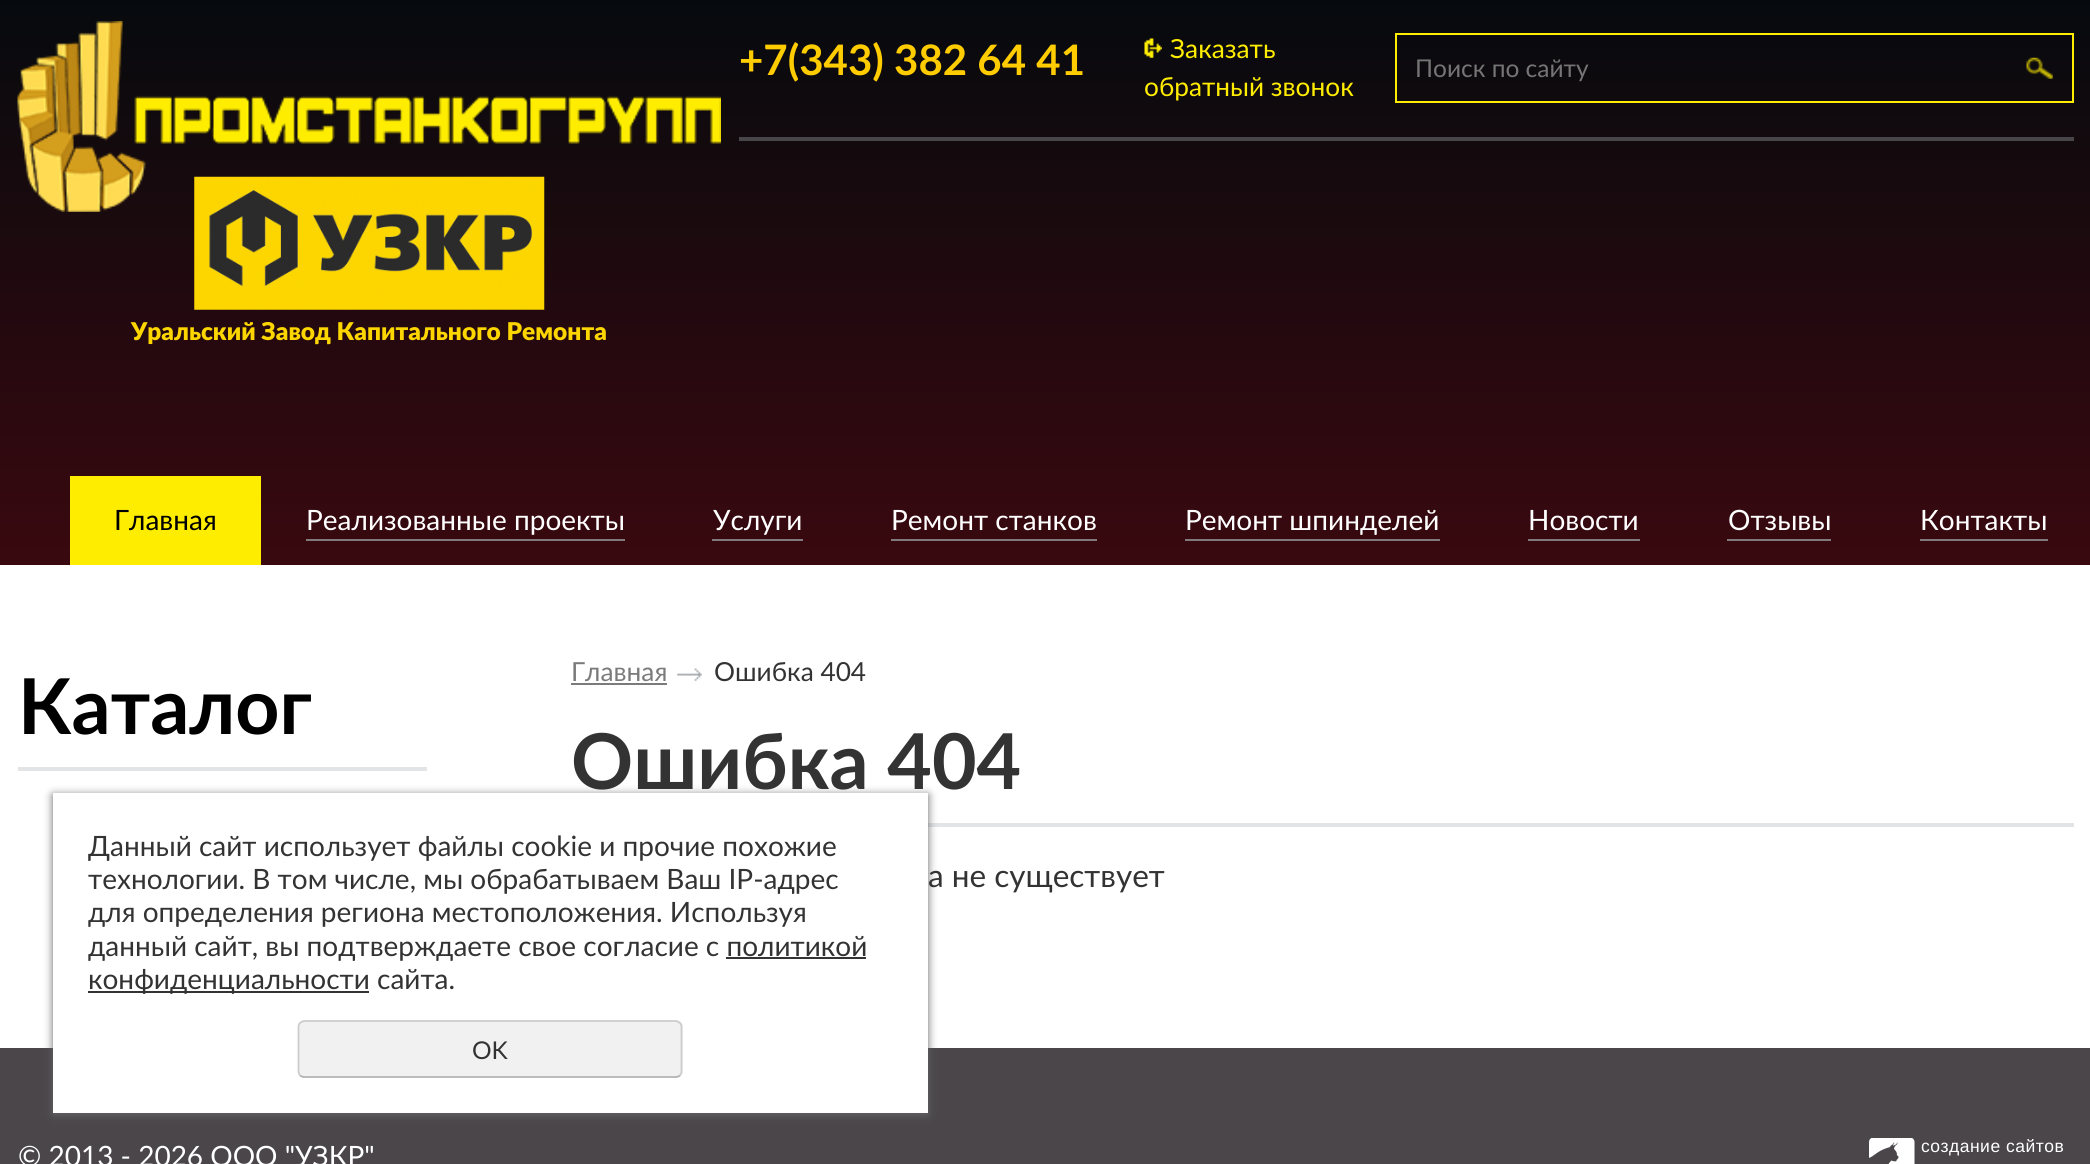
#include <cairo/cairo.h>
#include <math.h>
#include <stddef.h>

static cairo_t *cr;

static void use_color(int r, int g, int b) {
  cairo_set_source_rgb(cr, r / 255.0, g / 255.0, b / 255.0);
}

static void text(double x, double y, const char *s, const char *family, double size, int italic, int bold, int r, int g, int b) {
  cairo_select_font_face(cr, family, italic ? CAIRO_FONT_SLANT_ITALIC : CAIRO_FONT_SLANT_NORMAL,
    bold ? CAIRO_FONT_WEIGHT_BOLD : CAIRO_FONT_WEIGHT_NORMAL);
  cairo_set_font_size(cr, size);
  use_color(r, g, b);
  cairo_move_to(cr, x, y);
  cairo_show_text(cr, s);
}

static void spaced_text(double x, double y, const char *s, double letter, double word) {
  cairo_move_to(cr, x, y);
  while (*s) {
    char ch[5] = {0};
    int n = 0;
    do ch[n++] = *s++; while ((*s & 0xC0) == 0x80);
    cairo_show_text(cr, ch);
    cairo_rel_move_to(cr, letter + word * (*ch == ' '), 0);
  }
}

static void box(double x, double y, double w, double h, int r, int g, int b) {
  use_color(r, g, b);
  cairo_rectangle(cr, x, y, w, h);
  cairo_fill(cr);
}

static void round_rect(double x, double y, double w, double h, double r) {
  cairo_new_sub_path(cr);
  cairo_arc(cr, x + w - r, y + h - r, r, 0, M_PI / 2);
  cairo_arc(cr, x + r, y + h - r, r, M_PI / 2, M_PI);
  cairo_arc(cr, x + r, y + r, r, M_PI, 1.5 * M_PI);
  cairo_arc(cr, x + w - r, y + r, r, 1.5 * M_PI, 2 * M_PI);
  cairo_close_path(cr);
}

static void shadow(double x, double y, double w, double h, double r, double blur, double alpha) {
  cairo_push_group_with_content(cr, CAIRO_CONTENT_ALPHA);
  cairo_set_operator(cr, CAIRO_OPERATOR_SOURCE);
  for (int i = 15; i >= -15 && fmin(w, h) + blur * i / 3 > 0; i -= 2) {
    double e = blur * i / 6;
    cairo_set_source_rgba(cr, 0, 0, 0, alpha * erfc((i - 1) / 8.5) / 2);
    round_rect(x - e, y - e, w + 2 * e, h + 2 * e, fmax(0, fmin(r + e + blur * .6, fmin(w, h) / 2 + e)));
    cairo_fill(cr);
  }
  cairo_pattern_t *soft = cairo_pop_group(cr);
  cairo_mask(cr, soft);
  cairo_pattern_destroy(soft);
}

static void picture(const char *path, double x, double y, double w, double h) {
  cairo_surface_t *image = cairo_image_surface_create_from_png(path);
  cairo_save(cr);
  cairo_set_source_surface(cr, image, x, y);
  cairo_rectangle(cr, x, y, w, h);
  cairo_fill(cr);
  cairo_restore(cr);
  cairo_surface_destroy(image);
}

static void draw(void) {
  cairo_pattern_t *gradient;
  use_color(255, 255, 255);
  cairo_paint(cr);
  gradient = cairo_pattern_create_linear(1046, 0, 1046, 565);
  cairo_pattern_add_color_stop_rgba(gradient, 0, 0.024, 0.039, 0.055, 1);
  cairo_pattern_add_color_stop_rgba(gradient, 1, 0.224, 0.035, 0.059, 1);
  cairo_set_source(cr, gradient);
  cairo_pattern_destroy(gradient);
  cairo_rectangle(cr, 0, 0, 2090, 565);
  cairo_fill(cr);
  picture("img_01.png", 1144, 38, 18, 20);
  cairo_rectangle(cr, 1396, 34, 677, 68);
  use_color(255, 237, 0);
  cairo_stroke(cr);
  picture("img_02.png", 2026, 57, 27, 22);
  box(739, 137, 1335, 4, 73, 70, 73);
  picture("img_03.png", 17, 21, 704, 191);
  picture("img_04.png", 194, 176, 351, 134);
  box(70, 476, 191, 89, 255, 237, 0);
  box(306, 539, 319, 2, 128, 122, 124);
  box(712, 539, 91, 2, 128, 122, 124);
  box(891, 539, 206, 2, 128, 122, 124);
  box(1185, 539, 255, 2, 128, 122, 124);
  box(1528, 539, 112, 2, 128, 122, 124);
  box(1727, 539, 104, 2, 128, 122, 124);
  box(1920, 539, 128, 2, 128, 122, 124);
  box(18, 767, 409, 4, 226, 228, 230);
  box(571, 683, 96, 2, 123, 123, 123);
  picture("img_05.png", 677, 668, 25, 13);
  box(928, 823, 1146, 4, 226, 228, 230);
  box(0, 1048, 2090, 116, 74, 70, 74);
  picture("img_06.png", 1869, 1138, 46, 26);
  use_color(102, 102, 102);
  shadow(53, 795, 875, 320, 0, 4.5, 1);
  box(53, 793, 875, 320, 255, 255, 255);
  box(726, 957, 140, 2, 51, 51, 51);
  box(88, 991, 281, 2, 51, 51, 51);
  use_color(241, 241, 241);
  round_rect(298, 1020, 385, 58, 7);
  cairo_fill(cr);
  cairo_new_path(cr);
  cairo_move_to(cr, 680, 1075.5);
  cairo_curve_to(cr, 678.5, 1076.5, 677, 1077, 675.5, 1077);
  cairo_line_to(cr, 304.5, 1077);
  cairo_curve_to(cr, 303, 1077, 301.5, 1076.5, 300, 1075.5);
  use_color(179, 179, 179);
  cairo_set_line_width(cr, 1.8);
  cairo_stroke(cr);
  cairo_new_path(cr);
  cairo_move_to(cr, 300, 1075.5);
  cairo_curve_to(cr, 299, 1074, 298.5, 1072.5, 298.5, 1071);
  cairo_line_to(cr, 298.5, 1027);
  cairo_curve_to(cr, 298.5, 1025.5, 299, 1024, 300, 1023);
  cairo_curve_to(cr, 301.5, 1022, 303, 1021, 304.5, 1021);
  cairo_line_to(cr, 675.5, 1021);
  cairo_curve_to(cr, 677, 1021, 678.5, 1022, 680, 1023);
  cairo_curve_to(cr, 681, 1024, 681.5, 1025.5, 681.5, 1027);
  cairo_line_to(cr, 681.5, 1071);
  cairo_curve_to(cr, 681.5, 1072.5, 681, 1074, 680, 1075.5);
  use_color(204, 204, 204);
  cairo_stroke(cr);
  text(739, 75, "+7(343) 382 64 41", "Lato", 42, 0, 1, 255, 204, 0);
  text(1170, 58, "Заказать", "Lato", 26.25, 0, 0, 255, 237, 0);
  text(1144, 96, "обратный звонок", "Lato", 26.25, 0, 0, 255, 237, 0);
  text(1415, 77, "Поиск по сайту", "Lato", 24.5, 0, 0, 117, 117, 117);
  text(131, 340, "Уральский Завод Капитального Ремонта", "Lato Black", 24.5, 0, 0, 253, 214, 0);
  text(114, 530, "Главная", "Lato", 28, 0, 0, 0, 0, 0);
  text(306, 530, "Реализованные проекты", "Lato", 28, 0, 0, 255, 255, 255);
  text(713, 530, "Услуги", "Lato", 28, 0, 0, 255, 255, 255);
  text(891, 530, "Ремонт станков", "Lato", 28, 0, 0, 255, 255, 255);
  text(1185, 530, "Ремонт шпинделей", "Lato", 28, 0, 0, 255, 255, 255);
  text(1528, 530, "Новости", "Lato", 28, 0, 0, 255, 255, 255);
  text(1728, 530, "Отзывы", "Lato", 28, 0, 0, 255, 255, 255);
  text(1920, 530, "Контакты", "Lato", 28, 0, 0, 255, 255, 255);
  text(18, 734, "Каталог", "Lato", 77, 0, 1, 0, 0, 0);
  text(571, 681, "Главная", "Lato", 26.25, 0, 0, 123, 123, 123);
  text(714, 681, "Ошибка 404", "Lato", 26.25, 0, 0, 51, 51, 51);
  text(571, 789, "Ошибка 404", "Lato", 77, 0, 1, 51, 51, 51);
  text(928, 887, "а не существует", "Lato", 31.5, 0, 0, 51, 51, 51);
  text(18, 1166, "© 2013 - 2026 ООО \"УЗКР\"", "Lato", 28, 0, 0, 255, 255, 255);
  cairo_select_font_face(cr, "Liberation Sans", CAIRO_FONT_SLANT_NORMAL, CAIRO_FONT_WEIGHT_NORMAL);
  cairo_set_font_size(cr, 17.5);
  spaced_text(1921, 1152, "создание сайтов", 0.5, 0);
  text(88, 856, "Данный сайт использует файлы cookie и прочие похожие", "Lato", 28, 0, 0, 51, 51, 51);
  text(88, 889, "технологии. В том числе, мы обрабатываем Ваш IP-адрес", "Lato", 28, 0, 0, 51, 51, 51);
  text(88, 922, "для определения региона местоположения. Используя", "Lato", 28, 0, 0, 51, 51, 51);
  text(88, 956, "данный сайт, вы подтверждаете свое согласие с политикой", "Lato", 28, 0, 0, 51, 51, 51);
  text(88, 989, "конфиденциальности сайта.", "Lato", 28, 0, 0, 51, 51, 51);
  text(472, 1059, "OK", "Lato", 24.5, 0, 0, 51, 51, 51);
}

int main(void) {
  cairo_surface_t *surface = cairo_image_surface_create(CAIRO_FORMAT_RGB24, 2090, 1164);
  cr = cairo_create(surface);
  cairo_font_options_t *options = cairo_font_options_create();
  cairo_font_options_set_hint_metrics(options, CAIRO_HINT_METRICS_OFF);
  cairo_font_options_set_hint_style(options, CAIRO_HINT_STYLE_NONE);
  cairo_set_font_options(cr, options);
  cairo_set_miter_limit(cr, 4);
  draw();
  cairo_surface_write_to_png(surface, "out.png");
  cairo_font_options_destroy(options);
  cairo_destroy(cr);
  cairo_surface_destroy(surface);
  return 0;
}
